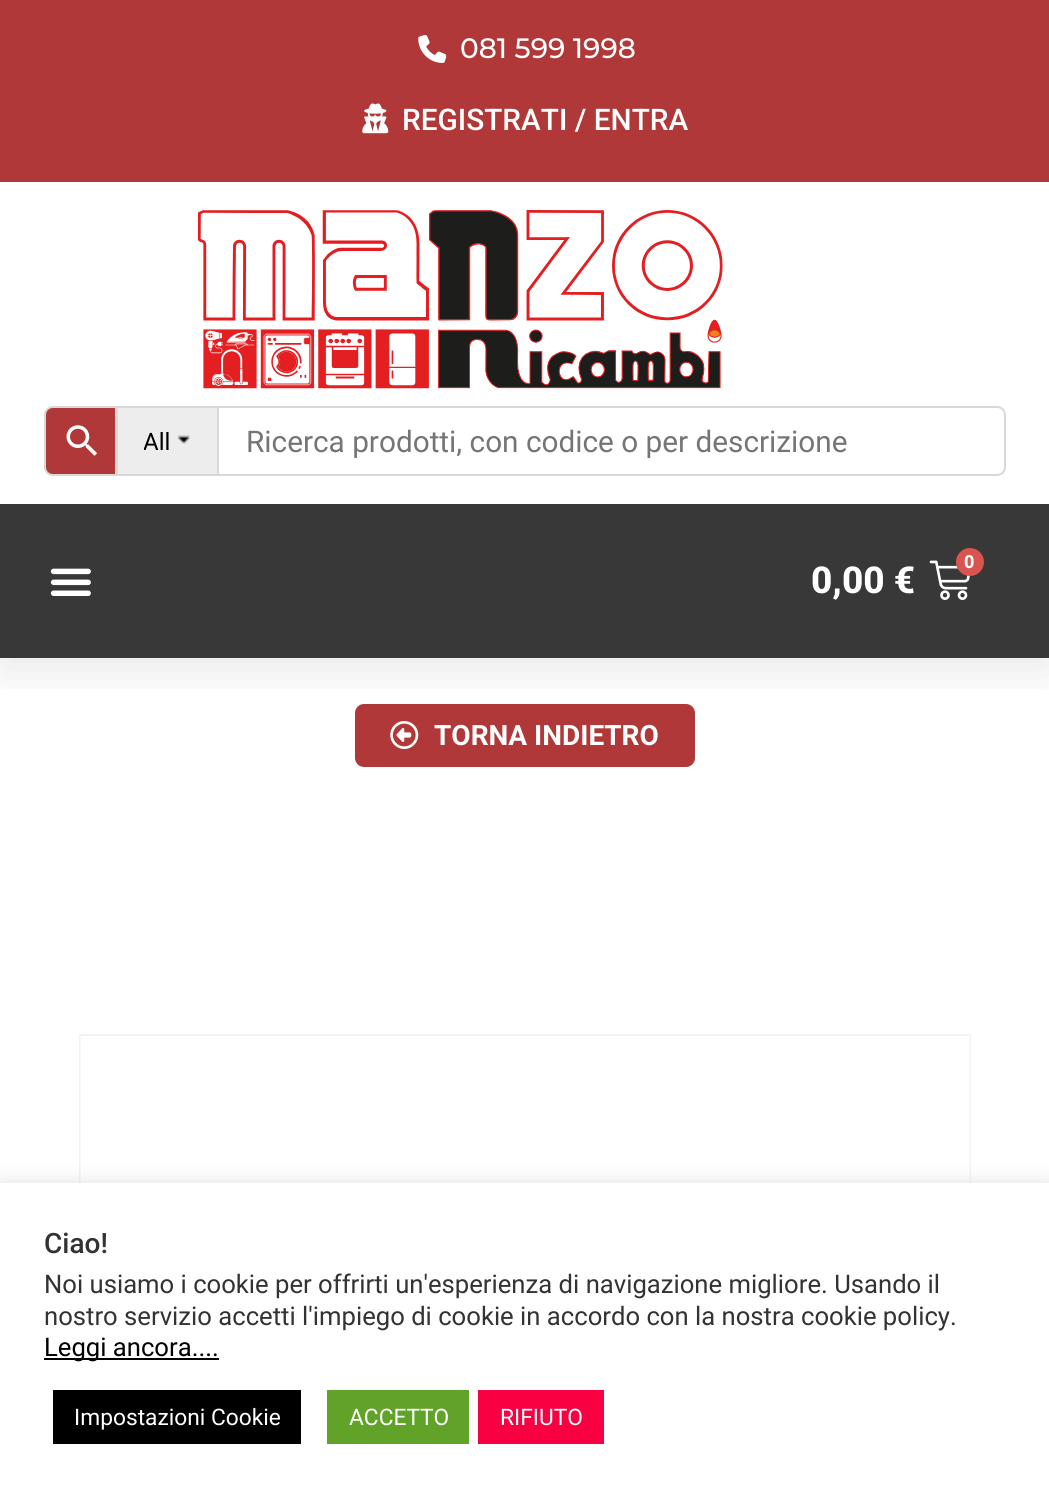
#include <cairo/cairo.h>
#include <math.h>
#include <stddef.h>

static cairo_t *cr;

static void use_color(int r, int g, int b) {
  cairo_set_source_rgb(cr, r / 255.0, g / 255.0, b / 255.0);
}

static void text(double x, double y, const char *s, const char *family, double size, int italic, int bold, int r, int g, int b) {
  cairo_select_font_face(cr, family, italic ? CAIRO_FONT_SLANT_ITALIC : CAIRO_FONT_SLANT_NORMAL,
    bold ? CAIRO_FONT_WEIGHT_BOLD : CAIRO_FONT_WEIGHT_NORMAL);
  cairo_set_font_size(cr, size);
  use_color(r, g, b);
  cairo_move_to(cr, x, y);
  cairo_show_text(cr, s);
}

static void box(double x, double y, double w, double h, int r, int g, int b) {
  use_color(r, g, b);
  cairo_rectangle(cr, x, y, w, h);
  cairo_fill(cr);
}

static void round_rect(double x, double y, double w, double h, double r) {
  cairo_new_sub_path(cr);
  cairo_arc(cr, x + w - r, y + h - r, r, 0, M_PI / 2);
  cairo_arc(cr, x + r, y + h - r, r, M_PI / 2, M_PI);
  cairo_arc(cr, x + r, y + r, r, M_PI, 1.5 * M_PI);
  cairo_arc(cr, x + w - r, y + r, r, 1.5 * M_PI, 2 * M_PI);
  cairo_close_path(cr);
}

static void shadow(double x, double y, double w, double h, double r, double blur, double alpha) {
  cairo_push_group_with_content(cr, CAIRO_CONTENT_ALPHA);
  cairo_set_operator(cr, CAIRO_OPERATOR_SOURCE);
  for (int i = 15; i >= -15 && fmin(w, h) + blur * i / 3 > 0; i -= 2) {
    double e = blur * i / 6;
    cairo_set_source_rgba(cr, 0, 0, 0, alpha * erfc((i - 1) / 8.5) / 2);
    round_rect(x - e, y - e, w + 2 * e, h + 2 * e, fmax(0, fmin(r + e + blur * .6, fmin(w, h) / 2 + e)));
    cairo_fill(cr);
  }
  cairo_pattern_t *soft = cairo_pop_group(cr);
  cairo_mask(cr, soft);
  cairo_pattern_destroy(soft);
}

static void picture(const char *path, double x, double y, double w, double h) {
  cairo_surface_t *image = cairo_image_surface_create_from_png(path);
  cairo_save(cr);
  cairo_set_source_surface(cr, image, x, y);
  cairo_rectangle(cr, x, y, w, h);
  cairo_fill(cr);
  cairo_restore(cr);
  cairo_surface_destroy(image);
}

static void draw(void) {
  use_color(255, 255, 255);
  cairo_paint(cr);
  use_color(177, 56, 56);
  round_rect(355, 704, 340, 63, 9);
  cairo_fill(cr);
  picture("img_08.png", 390, 721, 29, 28);
  cairo_save(cr);
  cairo_rectangle(cr, 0, 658, 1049, 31);
  cairo_clip(cr);
  use_color(0, 0, 0);
  shadow(0, 9, 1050, 658, 0, 26, 0.1);
  cairo_restore(cr);
  box(0, 0, 1049, 182, 177, 56, 56);
  picture("img_01.png", 418, 35, 29, 28);
  picture("img_02.png", 362, 103, 27, 31);
  picture("img_03.png", 198, 210, 525, 179);
  cairo_new_path(cr);
  cairo_move_to(cr, 53, 407);
  cairo_line_to(cr, 116, 407);
  cairo_line_to(cr, 116, 475);
  cairo_line_to(cr, 53, 475);
  cairo_curve_to(cr, 48.5, 475, 45, 471.5, 45, 467);
  cairo_line_to(cr, 45, 415);
  cairo_curve_to(cr, 45, 410.5, 48.5, 407, 53, 407);
  cairo_close_path(cr);
  cairo_fill_preserve(cr);
  use_color(216, 216, 216);
  cairo_stroke(cr);
  picture("img_04.png", 66, 425, 31, 31);
  use_color(237, 237, 237);
  cairo_rectangle(cr, 117, 407, 101, 68);
  cairo_fill_preserve(cr);
  use_color(216, 216, 216);
  cairo_stroke(cr);
  picture("img_05.png", 177, 435, 13, 9);
  cairo_new_path(cr);
  cairo_move_to(cr, 218, 407);
  cairo_line_to(cr, 997, 407);
  cairo_curve_to(cr, 1001.5, 407, 1005, 410.5, 1005, 415);
  cairo_line_to(cr, 1005, 467);
  cairo_curve_to(cr, 1005, 471.5, 1001.5, 475, 997, 475);
  cairo_line_to(cr, 218, 475);
  cairo_close_path(cr);
  cairo_stroke(cr);
  box(0, 504, 1049, 154, 56, 56, 56);
  picture("img_06.png", 50, 568, 41, 28);
  picture("img_07.png", 929, 560, 41, 40);
  use_color(217, 83, 79);
  cairo_arc(cr, 970, 562, 14, 0, 2 * M_PI);
  cairo_fill(cr);
  cairo_rectangle(cr, 80, 1035, 890, 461);
  use_color(242, 242, 242);
  cairo_stroke(cr);
  picture("img_09.png", 80, 1036, 890, 147);
  use_color(172, 171, 171);
  shadow(0, 1181, 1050, 314, 0, 9, 0.3);
  box(0, 1183, 1049, 312, 255, 255, 255);
  box(44, 1358, 175, 2, 0, 0, 0);
  box(53, 1390, 248, 54, 0, 0, 0);
  box(327, 1390, 142, 54, 97, 162, 41);
  box(478, 1390, 126, 54, 249, 0, 66);
  text(460, 58, "081 599 1998", "Montserrat Medium", 28, 0, 0, 255, 255, 255);
  text(402, 130, "REGISTRATI / ENTRA", "Roboto Medium", 29.75, 0, 0, 255, 255, 255);
  cairo_save(cr);
  cairo_rectangle(cr, 144, 432, 47, 20);
  cairo_clip(cr);
  text(143, 450, "All", "Roboto", 24, 0, 0, 0, 0, 0);
  cairo_restore(cr);
  text(246, 452, "Ricerca prodotti, con codice o per descrizione", "Roboto", 29.75, 0, 0, 117, 117, 117);
  text(964, 568, "0", "Roboto ExtraBold", 18, 0, 0, 255, 255, 255);
  text(811, 593, "0,00 €", "Roboto ExtraBold", 37, 0, 0, 255, 255, 255);
  text(434, 745, "TORNA INDIETRO", "Roboto", 28, 0, 1, 255, 255, 255);
  text(44, 1253, "Ciao!", "Roboto Medium", 28, 0, 0, 51, 51, 51);
  text(44, 1293, "Noi usiamo i cookie per offrirti un'esperienza di navigazione migliore. Usando il", "Roboto", 25.65, 0, 0, 51, 51, 51);
  text(44, 1325, "nostro servizio accetti l'impiego di cookie in accordo con la nostra cookie policy.", "Roboto", 25.65, 0, 0, 51, 51, 51);
  text(44, 1356, "Leggi ancora....", "Roboto", 25.65, 0, 0, 0, 0, 0);
  text(74, 1425, "Impostazioni Cookie", "Roboto", 22.75, 0, 0, 255, 255, 255);
  text(349, 1425, "ACCETTO", "Roboto", 22.75, 0, 0, 255, 255, 255);
  text(500, 1425, "RIFIUTO", "Roboto", 22.75, 0, 0, 255, 255, 255);
}

int main(void) {
  cairo_surface_t *surface = cairo_image_surface_create(CAIRO_FORMAT_RGB24, 1049, 1495);
  cr = cairo_create(surface);
  cairo_font_options_t *options = cairo_font_options_create();
  cairo_font_options_set_hint_metrics(options, CAIRO_HINT_METRICS_OFF);
  cairo_font_options_set_hint_style(options, CAIRO_HINT_STYLE_NONE);
  cairo_set_font_options(cr, options);
  cairo_set_miter_limit(cr, 4);
  draw();
  cairo_surface_write_to_png(surface, "out.png");
  cairo_font_options_destroy(options);
  cairo_destroy(cr);
  cairo_surface_destroy(surface);
  return 0;
}
